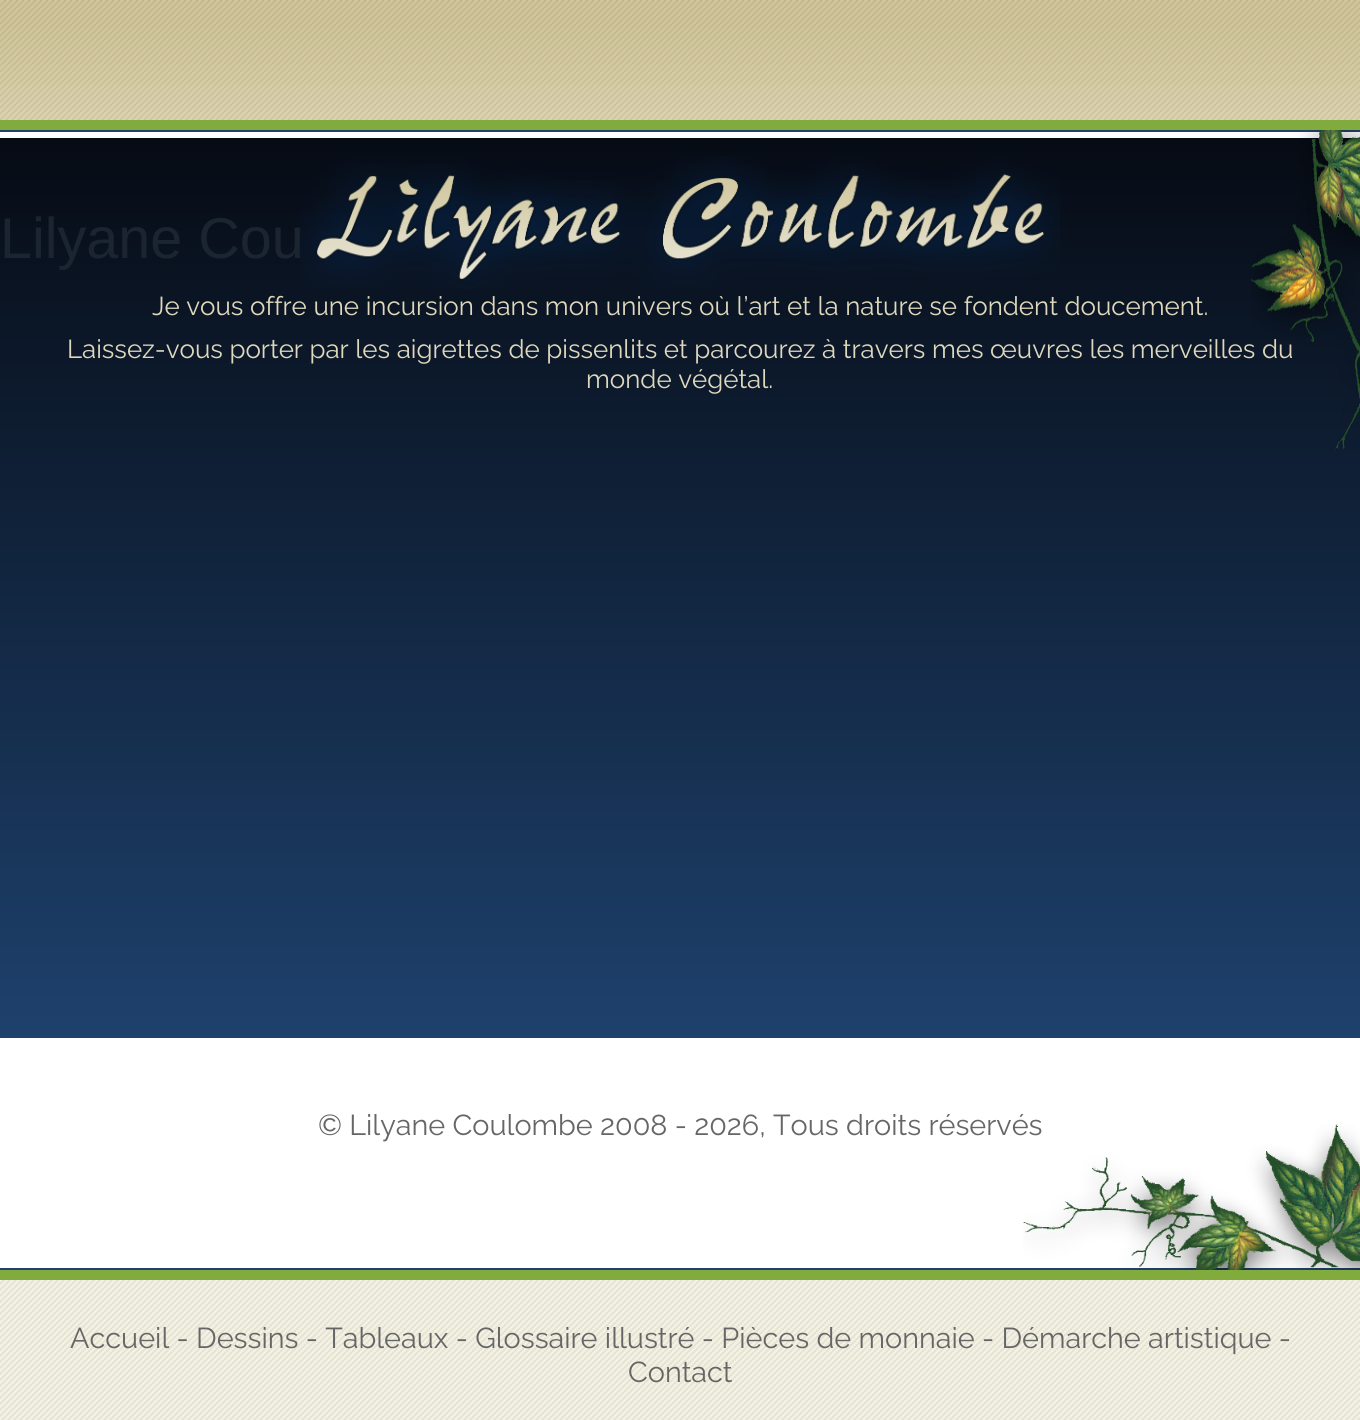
#include <cairo/cairo.h>
#include <math.h>
#include <stddef.h>

static cairo_t *cr;

static void use_color(int r, int g, int b) {
  cairo_set_source_rgb(cr, r / 255.0, g / 255.0, b / 255.0);
}

static void text(double x, double y, const char *s, const char *family, double size, int italic, int bold, int r, int g, int b) {
  cairo_select_font_face(cr, family, italic ? CAIRO_FONT_SLANT_ITALIC : CAIRO_FONT_SLANT_NORMAL,
    bold ? CAIRO_FONT_WEIGHT_BOLD : CAIRO_FONT_WEIGHT_NORMAL);
  cairo_set_font_size(cr, size);
  use_color(r, g, b);
  cairo_move_to(cr, x, y);
  cairo_show_text(cr, s);
}

static void box(double x, double y, double w, double h, int r, int g, int b) {
  use_color(r, g, b);
  cairo_rectangle(cr, x, y, w, h);
  cairo_fill(cr);
}

static void picture(const char *path, double x, double y, double w, double h) {
  cairo_surface_t *image = cairo_image_surface_create_from_png(path);
  cairo_save(cr);
  cairo_set_source_surface(cr, image, x, y);
  cairo_rectangle(cr, x, y, w, h);
  cairo_fill(cr);
  cairo_restore(cr);
  cairo_surface_destroy(image);
}

static void draw(void) {
  cairo_pattern_t *gradient;
  use_color(255, 255, 255);
  cairo_paint(cr);
  picture("img_01.png", 0, 0, 1360, 1420);
  box(0, 132, 1360, 1136, 255, 255, 255);
  box(0, 120, 1360, 10, 129, 172, 61);
  box(0, 1270, 1360, 10, 129, 172, 61);
  box(0, 130, 1360, 2, 30, 65, 109);
  box(0, 1268, 1360, 2, 30, 65, 109);
  gradient = cairo_pattern_create_linear(680, 138, 680, 1038);
  cairo_pattern_add_color_stop_rgba(gradient, 0, 0.024, 0.043, 0.078, 1);
  cairo_pattern_add_color_stop_rgba(gradient, 1, 0.118, 0.255, 0.427, 1);
  cairo_set_source(cr, gradient);
  cairo_pattern_destroy(gradient);
  cairo_rectangle(cr, 0, 138, 1360, 900);
  cairo_fill(cr);
  picture("img_02.png", 300, 156, 760, 133);
  text(0, 258, "Lilyane Cou", "Liberation Sans", 57.5, 0, 0, 27, 37, 48);
  text(152, 315, "Je vous offre une incursion dans mon univers où l’art et la nature se fondent doucement.", "Raleway Thin", 25.9, 0, 0, 222, 216, 189);
  text(67, 358, "Laissez-vous porter par les aigrettes de pissenlits et parcourez à travers mes œuvres les merveilles du", "Raleway Thin", 25.9, 0, 0, 222, 216, 189);
  text(586, 388, "monde végétal.", "Raleway Thin", 25.9, 0, 0, 222, 216, 189);
  picture("img_03.png", 1251, 130, 109, 320);
  text(318, 1135, "© Lilyane Coulombe 2008 - 2026, Tous droits réservés", "Raleway Thin", 28.8, 0, 0, 102, 102, 102);
  picture("img_04.png", 1023, 1124, 337, 146);
  text(70, 1348, "Accueil - Dessins - Tableaux - Glossaire illustré - Pièces de monnaie - Démarche artistique -", "Raleway Thin", 28.8, 0, 0, 102, 102, 102);
  text(628, 1382, "Contact", "Raleway Thin", 28.8, 0, 0, 102, 102, 102);
}

int main(void) {
  cairo_surface_t *surface = cairo_image_surface_create(CAIRO_FORMAT_RGB24, 1360, 1420);
  cr = cairo_create(surface);
  cairo_font_options_t *options = cairo_font_options_create();
  cairo_font_options_set_hint_metrics(options, CAIRO_HINT_METRICS_OFF);
  cairo_font_options_set_hint_style(options, CAIRO_HINT_STYLE_NONE);
  cairo_set_font_options(cr, options);
  cairo_set_miter_limit(cr, 4);
  draw();
  cairo_surface_write_to_png(surface, "out.png");
  cairo_font_options_destroy(options);
  cairo_destroy(cr);
  cairo_surface_destroy(surface);
  return 0;
}
